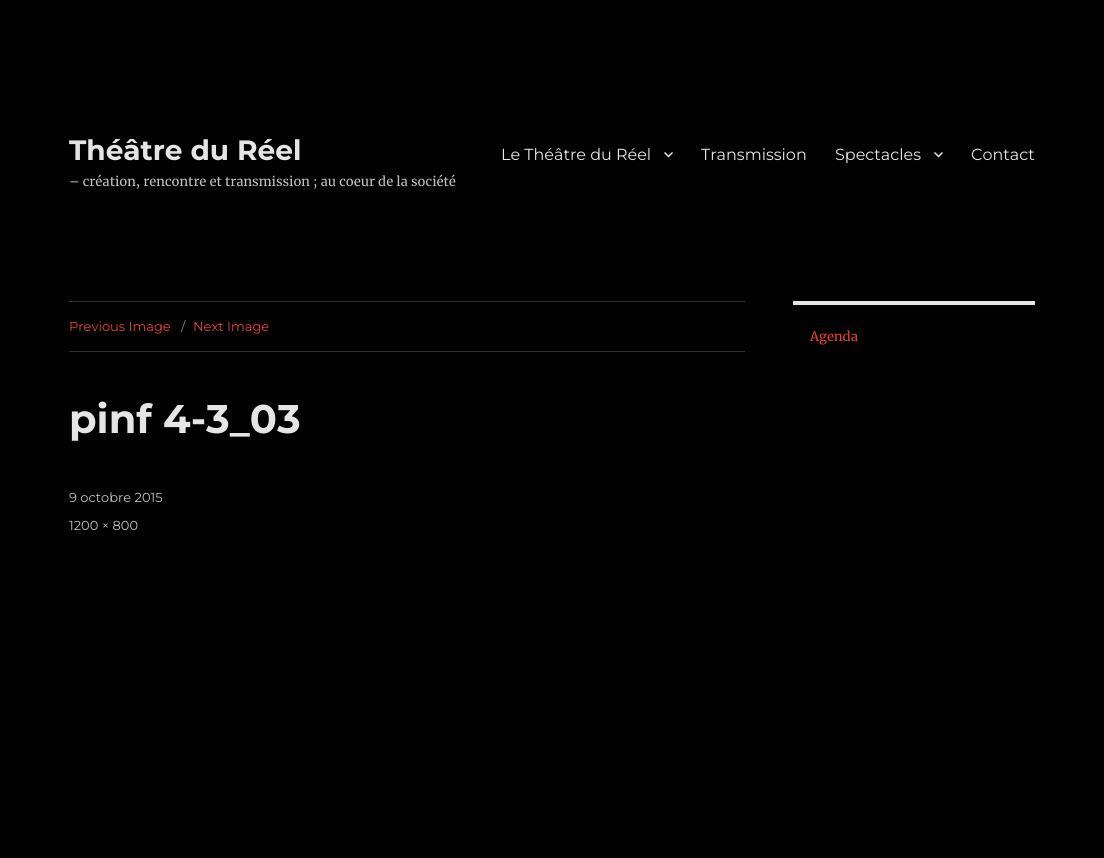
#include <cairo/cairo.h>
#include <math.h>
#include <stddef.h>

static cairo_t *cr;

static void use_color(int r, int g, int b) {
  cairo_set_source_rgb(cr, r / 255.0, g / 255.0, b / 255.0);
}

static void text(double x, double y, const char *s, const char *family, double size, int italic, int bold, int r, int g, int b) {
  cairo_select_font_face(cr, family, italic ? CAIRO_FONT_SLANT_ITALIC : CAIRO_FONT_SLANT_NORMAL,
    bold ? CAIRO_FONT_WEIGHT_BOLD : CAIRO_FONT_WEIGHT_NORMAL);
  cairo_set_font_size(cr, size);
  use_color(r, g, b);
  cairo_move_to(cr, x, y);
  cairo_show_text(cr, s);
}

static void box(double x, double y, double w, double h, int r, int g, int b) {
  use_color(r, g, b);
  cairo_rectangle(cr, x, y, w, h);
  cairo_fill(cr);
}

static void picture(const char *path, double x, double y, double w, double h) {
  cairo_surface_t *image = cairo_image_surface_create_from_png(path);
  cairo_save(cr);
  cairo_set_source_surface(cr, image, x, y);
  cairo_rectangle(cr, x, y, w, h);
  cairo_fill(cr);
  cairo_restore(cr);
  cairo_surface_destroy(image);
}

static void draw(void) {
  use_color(2, 2, 2);
  cairo_paint(cr);
  picture("img_01.png", 664, 152, 9, 6);
  picture("img_01.png", 934, 152, 9, 6);
  box(69, 301, 676, 1, 47, 47, 47);
  box(69, 351, 676, 1, 47, 47, 47);
  box(793, 301, 242, 4, 229, 229, 229);
  text(69, 160, "Théâtre du Réel", "Montserrat Thin", 28, 0, 0, 229, 229, 229);
  text(69, 186, "– création, rencontre et transmission ; au coeur de la société", "Merriweather", 13, 0, 0, 193, 193, 193);
  text(501, 160, "Le Théâtre du Réel", "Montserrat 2 Thin", 16, 0, 0, 229, 229, 229);
  text(701, 160, "Transmission", "Montserrat 2 Thin", 16, 0, 0, 229, 229, 229);
  text(835, 160, "Spectacles", "Montserrat 2 Thin", 16, 0, 0, 229, 229, 229);
  text(971, 160, "Contact", "Montserrat 2 Thin", 16, 0, 0, 229, 229, 229);
  text(69, 331, "Previous Image", "Montserrat 2 Thin", 13, 0, 0, 232, 65, 53);
  text(181, 331, "/", "Montserrat 2 Thin", 13, 0, 0, 136, 136, 136);
  text(193, 331, "Next Image", "Montserrat 2 Thin", 13, 0, 0, 232, 65, 53);
  text(69, 433, "pinf 4-3_03", "Montserrat Thin", 40, 0, 0, 229, 229, 229);
  text(69, 502, "9 octobre 2015", "Montserrat 2 Thin", 13, 0, 0, 193, 193, 193);
  text(69, 530, "1200 × 800", "Montserrat 2 Thin", 13, 0, 0, 193, 193, 193);
  text(810, 341, "Agenda", "Merriweather", 13, 0, 0, 232, 65, 53);
}

int main(void) {
  cairo_surface_t *surface = cairo_image_surface_create(CAIRO_FORMAT_RGB24, 1104, 858);
  cr = cairo_create(surface);
  cairo_font_options_t *options = cairo_font_options_create();
  cairo_font_options_set_hint_metrics(options, CAIRO_HINT_METRICS_OFF);
  cairo_font_options_set_hint_style(options, CAIRO_HINT_STYLE_NONE);
  cairo_set_font_options(cr, options);
  cairo_set_miter_limit(cr, 4);
  draw();
  cairo_surface_write_to_png(surface, "out.png");
  cairo_font_options_destroy(options);
  cairo_destroy(cr);
  cairo_surface_destroy(surface);
  return 0;
}
